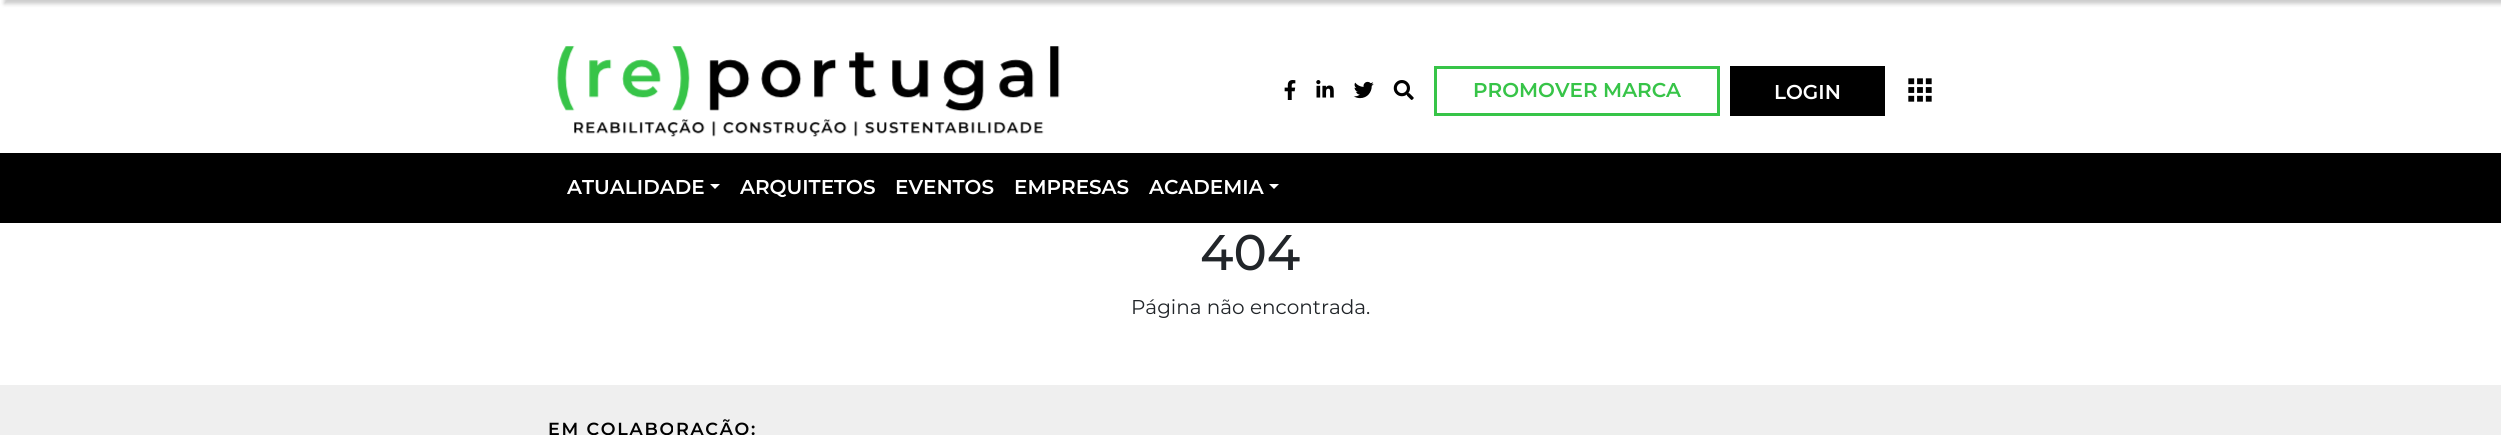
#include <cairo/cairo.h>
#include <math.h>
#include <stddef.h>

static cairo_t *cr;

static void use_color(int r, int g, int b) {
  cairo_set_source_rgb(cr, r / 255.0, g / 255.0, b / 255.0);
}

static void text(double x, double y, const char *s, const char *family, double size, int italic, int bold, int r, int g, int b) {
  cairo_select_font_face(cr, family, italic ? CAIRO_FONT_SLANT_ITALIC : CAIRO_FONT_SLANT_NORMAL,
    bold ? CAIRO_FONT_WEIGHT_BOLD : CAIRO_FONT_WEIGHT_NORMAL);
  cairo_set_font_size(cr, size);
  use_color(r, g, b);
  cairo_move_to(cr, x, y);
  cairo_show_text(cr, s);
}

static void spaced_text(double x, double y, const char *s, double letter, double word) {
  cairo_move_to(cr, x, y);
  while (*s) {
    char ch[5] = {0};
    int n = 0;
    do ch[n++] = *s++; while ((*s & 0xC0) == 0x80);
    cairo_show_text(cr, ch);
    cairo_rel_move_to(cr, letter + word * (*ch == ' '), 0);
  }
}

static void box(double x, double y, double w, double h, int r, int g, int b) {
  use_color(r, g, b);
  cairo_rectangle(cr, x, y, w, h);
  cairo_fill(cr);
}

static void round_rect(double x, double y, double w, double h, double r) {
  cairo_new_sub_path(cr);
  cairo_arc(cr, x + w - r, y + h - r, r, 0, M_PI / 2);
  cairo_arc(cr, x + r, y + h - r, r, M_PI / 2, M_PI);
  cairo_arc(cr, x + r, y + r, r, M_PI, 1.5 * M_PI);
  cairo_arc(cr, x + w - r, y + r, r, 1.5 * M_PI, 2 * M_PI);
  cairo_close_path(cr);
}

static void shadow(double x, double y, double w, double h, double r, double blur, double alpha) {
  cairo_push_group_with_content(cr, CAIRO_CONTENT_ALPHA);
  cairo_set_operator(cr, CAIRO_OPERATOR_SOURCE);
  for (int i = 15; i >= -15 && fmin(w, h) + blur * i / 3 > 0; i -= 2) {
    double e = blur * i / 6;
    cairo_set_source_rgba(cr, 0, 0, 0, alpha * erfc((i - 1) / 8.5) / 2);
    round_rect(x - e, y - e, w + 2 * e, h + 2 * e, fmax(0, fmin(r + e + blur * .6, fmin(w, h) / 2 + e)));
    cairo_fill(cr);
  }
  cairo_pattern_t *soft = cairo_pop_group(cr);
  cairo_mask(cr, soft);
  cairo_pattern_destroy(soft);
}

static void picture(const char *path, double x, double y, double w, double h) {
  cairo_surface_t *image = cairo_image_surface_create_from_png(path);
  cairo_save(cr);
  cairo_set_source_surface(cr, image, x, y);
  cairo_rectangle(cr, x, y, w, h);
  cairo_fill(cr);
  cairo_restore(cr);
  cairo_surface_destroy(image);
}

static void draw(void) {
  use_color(255, 255, 255);
  cairo_paint(cr);
  use_color(0, 0, 0);
  shadow(4, -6, 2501, 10, 0, 2, 0.2);
  picture("img_01.png", 557, 46, 503, 91);
  picture("img_02.png", 1284, 80, 12, 20);
  picture("img_03.png", 1316, 80, 18, 18);
  picture("img_04.png", 1353, 81, 21, 18);
  picture("img_05.png", 1393, 80, 21, 20);
  cairo_rectangle(cr, 1435.5, 67.5, 283, 47);
  use_color(55, 196, 72);
  cairo_set_line_width(cr, 3);
  cairo_stroke(cr);
  box(1730, 66, 155, 50, 0, 0, 0);
  picture("img_06.png", 1908, 78, 24, 24);
  box(0, 153, 2501, 70, 0, 0, 0);
  use_color(255, 255, 255);
  cairo_new_path(cr);
  cairo_move_to(cr, 710, 184);
  cairo_line_to(cr, 720, 184);
  cairo_line_to(cr, 715, 189);
  cairo_close_path(cr);
  cairo_fill(cr);
  cairo_new_path(cr);
  cairo_move_to(cr, 1269, 184);
  cairo_line_to(cr, 1279, 184);
  cairo_line_to(cr, 1274, 189);
  cairo_close_path(cr);
  cairo_fill(cr);
  box(0, 385, 2501, 50, 239, 239, 239);
  text(1473, 97, "PROMOVER MARCA", "Montserrat SemiBold", 20, 0, 0, 55, 196, 72);
  text(1774, 99, "LOGIN", "Montserrat SemiBold", 20, 0, 0, 255, 255, 255);
  text(567, 194, "ATUALIDADE", "Montserrat SemiBold", 20, 0, 0, 255, 255, 255);
  text(740, 194, "ARQUITETOS", "Montserrat SemiBold", 20, 0, 0, 255, 255, 255);
  text(895, 194, "EVENTOS", "Montserrat SemiBold", 20, 0, 0, 255, 255, 255);
  text(1014, 194, "EMPRESAS", "Montserrat SemiBold", 20, 0, 0, 255, 255, 255);
  text(1149, 194, "ACADEMIA", "Montserrat SemiBold", 20, 0, 0, 255, 255, 255);
  text(1200, 270, "404", "Montserrat Medium", 50, 0, 0, 33, 37, 41);
  text(1131, 314, "Página não encontrada.", "Montserrat", 20, 0, 0, 33, 37, 41);
  cairo_select_font_face(cr, "Montserrat SemiBold", CAIRO_FONT_SLANT_NORMAL, CAIRO_FONT_WEIGHT_NORMAL);
  cairo_set_font_size(cr, 17.5);
  use_color(0, 0, 0);
  spaced_text(548, 435, "EM COLABORAÇÃO:", 1.75, 0);
}

int main(void) {
  cairo_surface_t *surface = cairo_image_surface_create(CAIRO_FORMAT_RGB24, 2501, 435);
  cr = cairo_create(surface);
  cairo_font_options_t *options = cairo_font_options_create();
  cairo_font_options_set_hint_metrics(options, CAIRO_HINT_METRICS_OFF);
  cairo_font_options_set_hint_style(options, CAIRO_HINT_STYLE_NONE);
  cairo_set_font_options(cr, options);
  cairo_set_miter_limit(cr, 4);
  draw();
  cairo_surface_write_to_png(surface, "out.png");
  cairo_font_options_destroy(options);
  cairo_destroy(cr);
  cairo_surface_destroy(surface);
  return 0;
}
